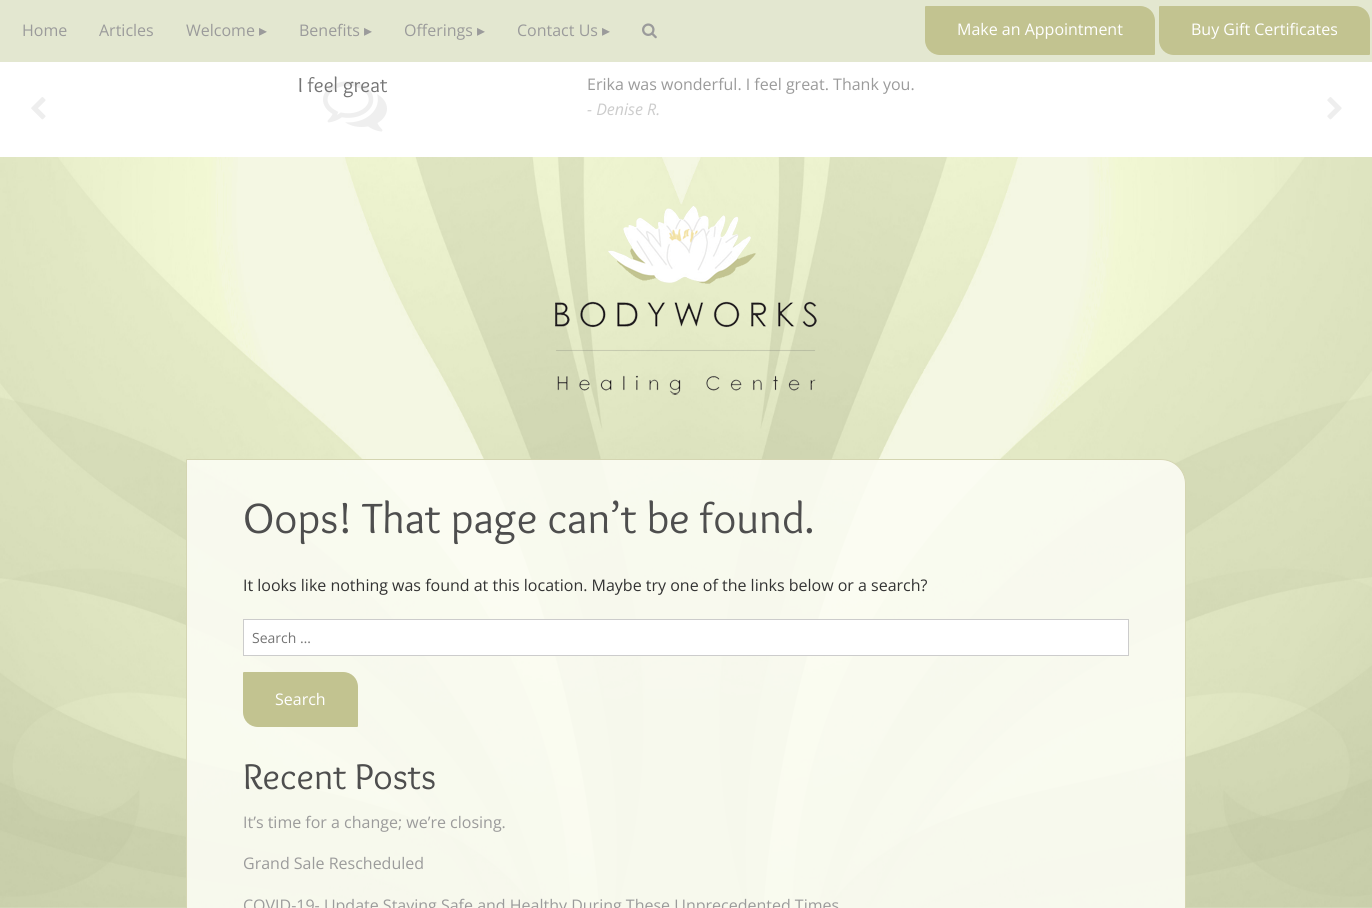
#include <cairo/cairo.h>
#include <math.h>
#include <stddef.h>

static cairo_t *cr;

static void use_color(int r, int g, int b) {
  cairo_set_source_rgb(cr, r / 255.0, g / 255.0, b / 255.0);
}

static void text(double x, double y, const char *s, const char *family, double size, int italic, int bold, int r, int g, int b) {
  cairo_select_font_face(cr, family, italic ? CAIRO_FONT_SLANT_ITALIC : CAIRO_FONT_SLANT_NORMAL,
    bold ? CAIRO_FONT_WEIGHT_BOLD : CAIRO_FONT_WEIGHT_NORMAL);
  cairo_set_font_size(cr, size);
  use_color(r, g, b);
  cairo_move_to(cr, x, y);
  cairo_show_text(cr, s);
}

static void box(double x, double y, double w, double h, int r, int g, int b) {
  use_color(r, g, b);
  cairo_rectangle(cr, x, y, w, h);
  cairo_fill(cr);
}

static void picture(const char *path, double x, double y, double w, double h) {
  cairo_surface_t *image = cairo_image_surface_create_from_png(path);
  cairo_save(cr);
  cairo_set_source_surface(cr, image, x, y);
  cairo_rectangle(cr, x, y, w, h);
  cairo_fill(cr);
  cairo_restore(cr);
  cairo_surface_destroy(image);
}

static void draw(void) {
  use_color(255, 255, 255);
  cairo_paint(cr);
  picture("img_01.png", 0, 157, 1372, 751);
  box(0, 0, 1372, 62, 227, 231, 208);
  picture("img_02.png", 642, 23, 15, 16);
  use_color(194, 195, 144);
  cairo_new_path(cr);
  cairo_move_to(cr, 926, 6);
  cairo_line_to(cr, 1140, 6);
  cairo_curve_to(cr, 1148.5, 6, 1155, 12.5, 1155, 21);
  cairo_line_to(cr, 1155, 54);
  cairo_curve_to(cr, 1155, 54.5, 1154.5, 55, 1154, 55);
  cairo_line_to(cr, 940, 55);
  cairo_curve_to(cr, 931.5, 55, 925, 48.5, 925, 40);
  cairo_line_to(cr, 925, 7);
  cairo_curve_to(cr, 925, 6.5, 925.5, 6, 926, 6);
  cairo_close_path(cr);
  cairo_fill(cr);
  cairo_new_path(cr);
  cairo_move_to(cr, 1160, 6);
  cairo_line_to(cr, 1355, 6);
  cairo_curve_to(cr, 1363.5, 6, 1370, 12.5, 1370, 21);
  cairo_line_to(cr, 1370, 54);
  cairo_curve_to(cr, 1370, 54.5, 1369.5, 55, 1369, 55);
  cairo_line_to(cr, 1174, 55);
  cairo_curve_to(cr, 1165.5, 55, 1159, 48.5, 1159, 40);
  cairo_line_to(cr, 1159, 7);
  cairo_curve_to(cr, 1159, 6.5, 1159.5, 6, 1160, 6);
  cairo_close_path(cr);
  cairo_fill(cr);
  picture("img_03.png", 31, 97, 15, 23);
  picture("img_04.png", 323, 81, 64, 51);
  picture("img_05.png", 1327, 97, 15, 23);
  picture("img_06.png", 555, 205, 262, 190);
  cairo_set_source_rgba(cr, 0.988, 0.992, 0.957, 0.9);
  cairo_new_path(cr);
  cairo_move_to(cr, 187, 459.5);
  cairo_line_to(cr, 1161, 459.5);
  cairo_curve_to(cr, 1174.5, 459.5, 1185.5, 470.5, 1185.5, 484);
  cairo_line_to(cr, 1185.5, 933.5);
  cairo_line_to(cr, 186.5, 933.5);
  cairo_line_to(cr, 186.5, 460);
  cairo_curve_to(cr, 186.5, 459.5, 186.5, 459.5, 187, 459.5);
  cairo_close_path(cr);
  cairo_fill_preserve(cr);
  use_color(212, 213, 177);
  cairo_set_line_width(cr, 1);
  cairo_stroke(cr);
  use_color(255, 255, 255);
  cairo_rectangle(cr, 243.5, 619.5, 885, 36);
  cairo_fill_preserve(cr);
  use_color(204, 204, 204);
  cairo_stroke(cr);
  use_color(194, 195, 144);
  cairo_new_path(cr);
  cairo_move_to(cr, 244, 672);
  cairo_line_to(cr, 343, 672);
  cairo_curve_to(cr, 351.5, 672, 358, 678.5, 358, 687);
  cairo_line_to(cr, 358, 726);
  cairo_curve_to(cr, 358, 726.5, 357.5, 727, 357, 727);
  cairo_line_to(cr, 258, 727);
  cairo_curve_to(cr, 249.5, 727, 243, 720.5, 243, 712);
  cairo_line_to(cr, 243, 673);
  cairo_curve_to(cr, 243, 672.5, 243.5, 672, 244, 672);
  cairo_close_path(cr);
  cairo_fill(cr);
  text(22, 36, "Home", "Open Sans", 16, 0, 0, 155, 155, 155);
  text(99, 36, "Articles", "Open Sans", 16, 0, 0, 155, 155, 155);
  text(186, 36, "Welcome", "Open Sans", 16, 0, 0, 155, 155, 155);
  text(259, 36, "▸", "DejaVu Sans", 16, 0, 0, 155, 155, 155);
  text(299, 36, "Benefits", "Open Sans", 16, 0, 0, 155, 155, 155);
  text(364, 36, "▸", "DejaVu Sans", 16, 0, 0, 155, 155, 155);
  text(404, 36, "Offerings", "Open Sans", 16, 0, 0, 155, 155, 155);
  text(477, 36, "▸", "DejaVu Sans", 16, 0, 0, 155, 155, 155);
  text(517, 36, "Contact Us", "Open Sans", 16, 0, 0, 155, 155, 155);
  text(602, 36, "▸", "DejaVu Sans", 16, 0, 0, 155, 155, 155);
  text(957, 35, "Make an Appointment", "Open Sans", 16, 0, 0, 255, 255, 255);
  text(1191, 35, "Buy Gift Certificates", "Open Sans", 16, 0, 0, 255, 255, 255);
  text(298, 92, "I feel great", "Overlock", 21, 0, 0, 116, 116, 116);
  text(587, 90, "Erika was wonderful. I feel great. Thank you.", "Open Sans", 16, 0, 0, 155, 155, 155);
  text(587, 115, "- Denise R.", "Open Sans", 16, 1, 0, 204, 204, 204);
  text(243, 533, "Oops! That page can’t be found.", "Overlock", 44, 0, 0, 78, 78, 78);
  text(243, 591, "It looks like nothing was found at this location. Maybe try one of the links below or a search?", "Open Sans", 16, 0, 0, 51, 51, 51);
  text(252, 643, "Search …", "Open Sans", 14, 0, 0, 116, 116, 116);
  text(275, 705, "Search", "Open Sans", 16, 0, 0, 255, 255, 255);
  text(243, 789, "Recent Posts", "Overlock", 37, 0, 0, 78, 78, 78);
  text(243, 828, "It’s time for a change; we’re closing.", "Open Sans", 16, 0, 0, 155, 155, 155);
  text(243, 869, "Grand Sale Rescheduled", "Open Sans", 16, 0, 0, 155, 155, 155);
  text(243, 911, "COVID-19- Update Staying Safe and Healthy During These Unprecedented Times", "Open Sans", 16, 0, 0, 155, 155, 155);
}

int main(void) {
  cairo_surface_t *surface = cairo_image_surface_create(CAIRO_FORMAT_RGB24, 1372, 908);
  cr = cairo_create(surface);
  cairo_font_options_t *options = cairo_font_options_create();
  cairo_font_options_set_hint_metrics(options, CAIRO_HINT_METRICS_OFF);
  cairo_font_options_set_hint_style(options, CAIRO_HINT_STYLE_NONE);
  cairo_set_font_options(cr, options);
  cairo_set_miter_limit(cr, 4);
  draw();
  cairo_surface_write_to_png(surface, "out.png");
  cairo_font_options_destroy(options);
  cairo_destroy(cr);
  cairo_surface_destroy(surface);
  return 0;
}
